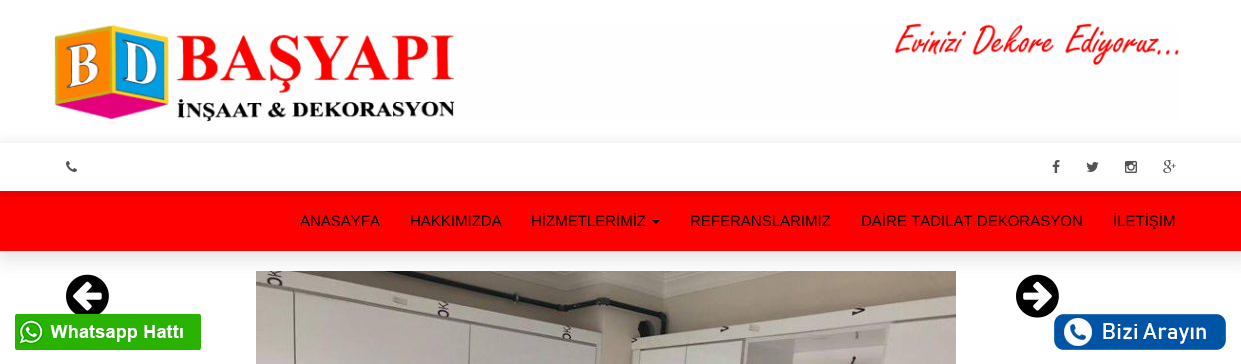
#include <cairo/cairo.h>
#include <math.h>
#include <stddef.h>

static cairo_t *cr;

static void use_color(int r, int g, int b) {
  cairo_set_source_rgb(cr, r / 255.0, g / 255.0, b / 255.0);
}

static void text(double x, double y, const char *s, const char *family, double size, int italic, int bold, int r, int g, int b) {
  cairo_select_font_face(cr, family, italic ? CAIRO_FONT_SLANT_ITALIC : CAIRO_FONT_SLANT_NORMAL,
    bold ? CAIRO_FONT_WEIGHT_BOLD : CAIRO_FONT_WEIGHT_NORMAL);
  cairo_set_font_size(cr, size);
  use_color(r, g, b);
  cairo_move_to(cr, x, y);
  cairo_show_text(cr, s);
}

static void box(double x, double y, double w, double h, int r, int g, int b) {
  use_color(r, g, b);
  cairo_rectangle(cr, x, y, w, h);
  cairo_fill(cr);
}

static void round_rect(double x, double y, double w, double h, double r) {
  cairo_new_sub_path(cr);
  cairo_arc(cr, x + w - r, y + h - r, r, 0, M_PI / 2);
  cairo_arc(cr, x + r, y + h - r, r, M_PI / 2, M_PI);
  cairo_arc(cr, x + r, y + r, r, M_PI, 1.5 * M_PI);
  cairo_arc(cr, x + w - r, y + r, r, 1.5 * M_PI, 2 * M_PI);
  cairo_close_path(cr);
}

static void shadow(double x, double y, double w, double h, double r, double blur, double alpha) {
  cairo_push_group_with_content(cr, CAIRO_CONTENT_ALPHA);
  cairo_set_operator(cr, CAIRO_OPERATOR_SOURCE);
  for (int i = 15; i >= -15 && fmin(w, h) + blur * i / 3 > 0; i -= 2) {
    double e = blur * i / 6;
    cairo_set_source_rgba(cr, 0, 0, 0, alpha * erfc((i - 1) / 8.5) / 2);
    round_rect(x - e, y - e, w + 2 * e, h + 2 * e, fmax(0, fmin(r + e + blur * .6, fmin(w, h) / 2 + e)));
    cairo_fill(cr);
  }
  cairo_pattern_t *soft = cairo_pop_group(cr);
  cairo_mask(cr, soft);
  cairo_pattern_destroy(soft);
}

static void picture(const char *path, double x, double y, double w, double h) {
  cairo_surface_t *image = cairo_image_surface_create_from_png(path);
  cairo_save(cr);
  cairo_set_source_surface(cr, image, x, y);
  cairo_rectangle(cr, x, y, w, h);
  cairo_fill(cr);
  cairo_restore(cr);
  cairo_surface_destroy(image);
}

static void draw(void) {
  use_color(255, 255, 255);
  cairo_paint(cr);
  picture("img_01.png", 54, 23, 1125, 99);
  picture("img_07.png", 66, 274, 43, 40);
  picture("img_08.png", 256, 271, 700, 93);
  picture("img_09.png", 1016, 274, 43, 44);
  use_color(0, 0, 0);
  shadow(3, 195, 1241, 60, 0, 12.5, 0.15);
  box(0, 191, 1241, 60, 255, 0, 0);
  use_color(0, 0, 0);
  shadow(2, 146, 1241, 48, 0, 7.5, 0.15);
  box(0, 143, 1241, 48, 255, 255, 255);
  picture("img_02.png", 66, 161, 11, 11);
  picture("img_03.png", 1052, 160, 8, 13);
  picture("img_04.png", 1086, 162, 13, 10);
  picture("img_05.png", 1125, 161, 12, 12);
  picture("img_06.png", 1163, 160, 13, 13);
  use_color(0, 0, 0);
  cairo_new_path(cr);
  cairo_move_to(cr, 652, 220);
  cairo_line_to(cr, 660, 220);
  cairo_line_to(cr, 656, 224);
  cairo_close_path(cr);
  cairo_fill(cr);
  picture("img_10.png", 15, 314, 186, 36);
  picture("img_11.png", 1054, 314, 172, 36);
  text(300, 226, "ANASAYFA", "Liberation Sans", 15, 0, 0, 0, 0, 0);
  text(410, 226, "HAKKIMIZDA", "Liberation Sans", 15, 0, 0, 0, 0, 0);
  text(531, 226, "HİZMETLERİMİZ", "Liberation Sans", 15, 0, 0, 0, 0, 0);
  text(690, 226, "REFERANSLARIMIZ", "Liberation Sans", 15, 0, 0, 0, 0, 0);
  text(861, 226, "DAİRE TADİLAT DEKORASYON", "Liberation Sans", 15, 0, 0, 0, 0, 0);
  text(1113, 226, "İLETİŞİM", "Liberation Sans", 15, 0, 0, 0, 0, 0);
}

int main(void) {
  cairo_surface_t *surface = cairo_image_surface_create(CAIRO_FORMAT_RGB24, 1241, 364);
  cr = cairo_create(surface);
  cairo_font_options_t *options = cairo_font_options_create();
  cairo_font_options_set_hint_metrics(options, CAIRO_HINT_METRICS_OFF);
  cairo_font_options_set_hint_style(options, CAIRO_HINT_STYLE_NONE);
  cairo_set_font_options(cr, options);
  cairo_set_miter_limit(cr, 4);
  draw();
  cairo_surface_write_to_png(surface, "out.png");
  cairo_font_options_destroy(options);
  cairo_destroy(cr);
  cairo_surface_destroy(surface);
  return 0;
}
